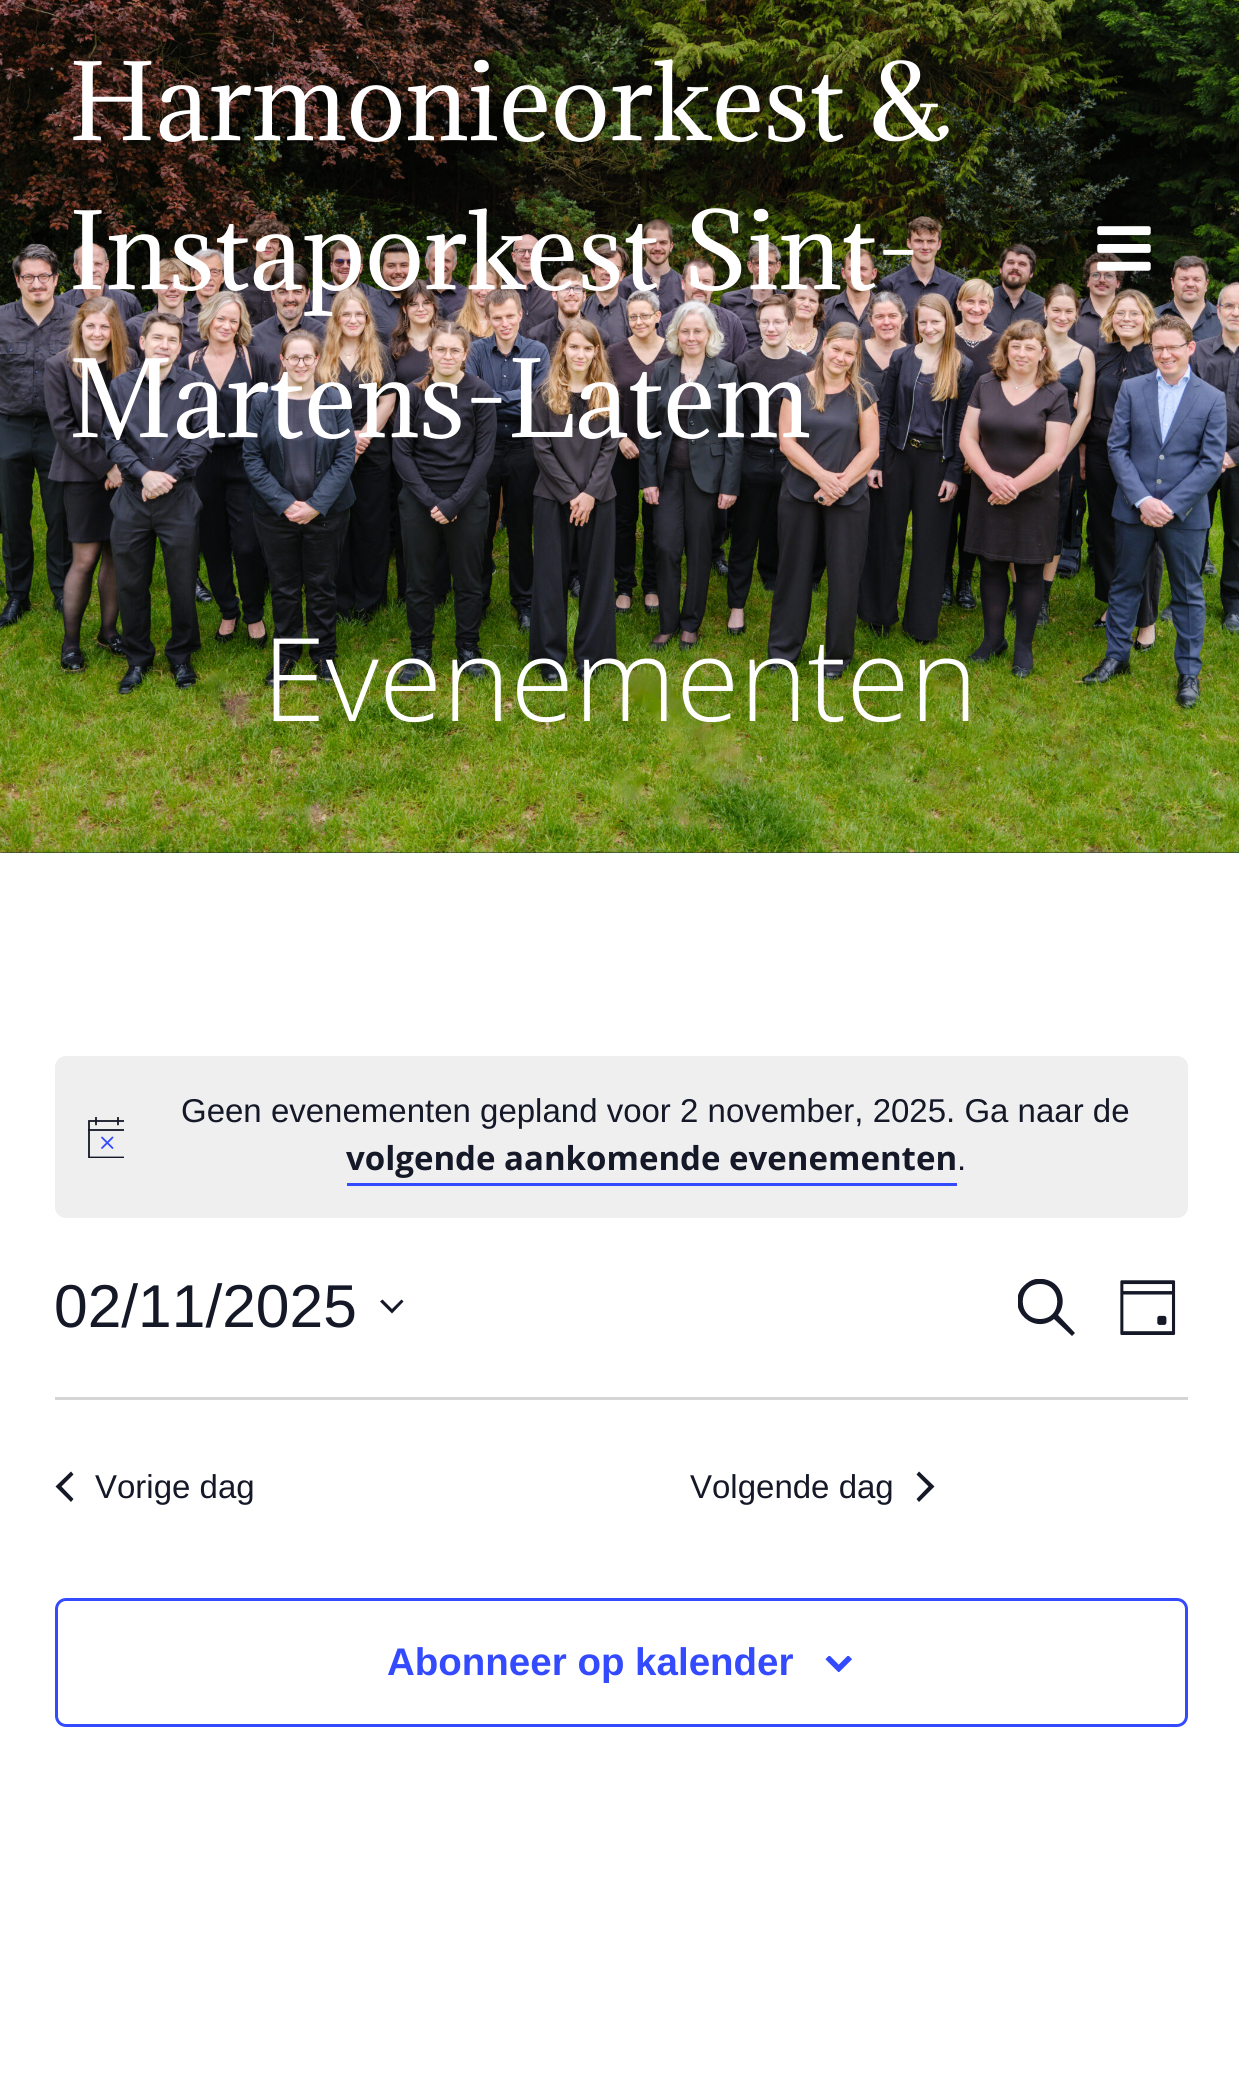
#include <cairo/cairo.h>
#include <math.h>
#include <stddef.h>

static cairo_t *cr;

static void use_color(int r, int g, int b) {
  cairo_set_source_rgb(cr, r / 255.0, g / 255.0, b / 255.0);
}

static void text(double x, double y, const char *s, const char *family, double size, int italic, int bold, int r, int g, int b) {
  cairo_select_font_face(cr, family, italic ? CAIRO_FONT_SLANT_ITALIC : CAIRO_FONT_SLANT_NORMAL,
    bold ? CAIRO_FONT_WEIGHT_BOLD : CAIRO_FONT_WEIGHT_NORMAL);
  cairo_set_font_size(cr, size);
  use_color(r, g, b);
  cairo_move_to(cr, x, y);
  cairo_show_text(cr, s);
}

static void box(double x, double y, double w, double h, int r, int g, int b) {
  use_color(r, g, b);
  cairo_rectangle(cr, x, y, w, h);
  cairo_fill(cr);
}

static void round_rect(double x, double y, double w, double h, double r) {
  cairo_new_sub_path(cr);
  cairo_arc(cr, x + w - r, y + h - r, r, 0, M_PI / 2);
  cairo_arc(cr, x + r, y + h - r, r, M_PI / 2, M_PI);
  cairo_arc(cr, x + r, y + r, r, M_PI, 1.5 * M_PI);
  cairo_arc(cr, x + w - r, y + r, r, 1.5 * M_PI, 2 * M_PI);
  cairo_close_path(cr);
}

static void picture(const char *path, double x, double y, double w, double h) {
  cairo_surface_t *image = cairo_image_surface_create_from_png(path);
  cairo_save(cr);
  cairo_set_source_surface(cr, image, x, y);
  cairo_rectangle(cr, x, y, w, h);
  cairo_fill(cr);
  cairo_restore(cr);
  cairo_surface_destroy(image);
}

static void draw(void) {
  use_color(255, 255, 255);
  cairo_paint(cr);
  box(0, 852, 1239, 1, 32, 49, 64);
  picture("img_02.png", 0, 0, 1239, 853);
  cairo_set_source_rgba(cr, 0, 0, 0, 0.1);
  round_rect(1078, 204, 94, 93, 46.5);
  cairo_fill(cr);
  picture("img_01.png", 1097, 226, 54, 45);
  use_color(239, 239, 240);
  round_rect(55, 1056, 1133, 162, 11);
  cairo_fill(cr);
  cairo_save(cr);
  cairo_rectangle(cr, 88, 1117, 36, 41);
  cairo_clip(cr);
  cairo_new_path(cr);
  cairo_move_to(cr, 89, 1121);
  cairo_line_to(cr, 125.5, 1121);
  cairo_line_to(cr, 125.5, 1157.5);
  cairo_line_to(cr, 89, 1157.5);
  cairo_close_path(cr);
  use_color(20, 24, 39);
  cairo_set_line_width(cr, 1.8);
  cairo_stroke(cr);
  cairo_restore(cr);
  cairo_new_path(cr);
  cairo_move_to(cr, 102, 1137.5);
  cairo_line_to(cr, 112.5, 1148);
  cairo_move_to(cr, 112.5, 1137.5);
  cairo_line_to(cr, 102, 1148);
  use_color(51, 74, 255);
  cairo_set_line_width(cr, 1.8);
  cairo_set_line_cap(cr, CAIRO_LINE_CAP_ROUND);
  cairo_stroke(cr);
  cairo_save(cr);
  cairo_rectangle(cr, 88, 1117, 36, 41);
  cairo_clip(cr);
  cairo_new_path(cr);
  cairo_move_to(cr, 96, 1117.5);
  cairo_line_to(cr, 96, 1124.5);
  cairo_move_to(cr, 118, 1117.5);
  cairo_line_to(cr, 118, 1124.5);
  use_color(20, 24, 39);
  cairo_stroke(cr);
  cairo_restore(cr);
  cairo_set_source_rgba(cr, 0.078, 0.094, 0.153, 0.9);
  cairo_rectangle(cr, 88, 1129, 36, 2);
  cairo_fill(cr);
  box(347, 1183, 610, 3, 51, 74, 255);
  use_color(20, 24, 39);
  cairo_set_fill_rule(cr, CAIRO_FILL_RULE_EVEN_ODD);
  cairo_new_path(cr);
  cairo_move_to(cr, 382.5, 1299.5);
  cairo_line_to(cr, 392, 1309);
  cairo_line_to(cr, 401.5, 1299.5);
  cairo_line_to(cr, 403.5, 1301.5);
  cairo_line_to(cr, 392, 1313.5);
  cairo_line_to(cr, 380, 1301.5);
  cairo_close_path(cr);
  cairo_fill(cr);
  cairo_save(cr);
  cairo_set_fill_rule(cr, CAIRO_FILL_RULE_WINDING);
  cairo_rectangle(cr, 1018, 1279, 57, 58);
  cairo_clip(cr);
  cairo_set_fill_rule(cr, CAIRO_FILL_RULE_EVEN_ODD);
  cairo_new_path(cr);
  cairo_move_to(cr, 1058, 1315);
  cairo_line_to(cr, 1075, 1333);
  cairo_line_to(cr, 1072, 1336);
  cairo_line_to(cr, 1054, 1319);
  cairo_curve_to(cr, 1034, 1335, 1007, 1310, 1021, 1289);
  cairo_curve_to(cr, 1025, 1284, 1030, 1280, 1036, 1279);
  cairo_curve_to(cr, 1043, 1278, 1051, 1280, 1056, 1285);
  cairo_curve_to(cr, 1064, 1293, 1065, 1306, 1058, 1315);
  cairo_close_path(cr);
  cairo_move_to(cr, 1040, 1284);
  cairo_curve_to(cr, 1017, 1284, 1017, 1319, 1040, 1319);
  cairo_curve_to(cr, 1063, 1319, 1063, 1284, 1040, 1284);
  cairo_close_path(cr);
  cairo_fill(cr);
  cairo_restore(cr);
  picture("img_03.png", 1120, 1280, 56, 55);
  box(55, 1397, 1133, 3, 213, 213, 213);
  use_color(20, 24, 39);
  cairo_set_fill_rule(cr, CAIRO_FILL_RULE_WINDING);
  cairo_new_path(cr);
  cairo_move_to(cr, 73.5, 1499);
  cairo_line_to(cr, 71, 1502);
  cairo_line_to(cr, 55.5, 1486.5);
  cairo_line_to(cr, 71, 1471.5);
  cairo_line_to(cr, 73.5, 1474.5);
  cairo_line_to(cr, 61.5, 1486.5);
  cairo_close_path(cr);
  cairo_fill(cr);
  cairo_new_path(cr);
  cairo_move_to(cr, 916.5, 1474.5);
  cairo_line_to(cr, 919, 1471.5);
  cairo_line_to(cr, 934.5, 1486.5);
  cairo_line_to(cr, 919, 1502);
  cairo_line_to(cr, 916.5, 1499);
  cairo_line_to(cr, 928.5, 1486.5);
  cairo_close_path(cr);
  cairo_fill(cr);
  round_rect(56.5, 1599.5, 1130, 126, 9.5);
  use_color(51, 74, 255);
  cairo_set_line_width(cr, 3);
  cairo_set_line_cap(cr, CAIRO_LINE_CAP_BUTT);
  cairo_stroke(cr);
  picture("img_04.png", 825, 1656, 27, 16);
  text(69, 140, "Harmonieorkest &", "Adamina", 99, 0, 0, 255, 255, 255);
  text(69, 289, "Instaporkest Sint-", "Adamina", 99, 0, 0, 255, 255, 255);
  text(69, 437, "Martens-Latem", "Adamina", 99, 0, 0, 255, 255, 255);
  text(262, 721, "Evenementen", "Open Sans Light", 115.5, 0, 0, 255, 255, 255);
  text(181, 1122, "Geen evenementen gepland voor 2 november, 2025. Ga naar de", "Liberation Sans", 33, 0, 0, 20, 24, 39);
  text(346, 1170, "volgende aankomende evenementen", "Open Sans", 33, 0, 1, 20, 24, 39);
  text(957, 1170, ".", "Liberation Sans", 33, 0, 0, 20, 24, 39);
  text(54, 1327, "02/11/2025", "Liberation Sans", 60.5, 0, 0, 20, 24, 39);
  text(95, 1498, "Vorige dag", "Liberation Sans", 33, 0, 0, 20, 24, 39);
  text(690, 1498, "Volgende dag", "Liberation Sans", 33, 0, 0, 20, 24, 39);
  text(387, 1675, "Abonneer op kalender", "Liberation Sans", 38.5, 0, 1, 51, 74, 255);
}

int main(void) {
  cairo_surface_t *surface = cairo_image_surface_create(CAIRO_FORMAT_RGB24, 1239, 2094);
  cr = cairo_create(surface);
  cairo_font_options_t *options = cairo_font_options_create();
  cairo_font_options_set_hint_metrics(options, CAIRO_HINT_METRICS_OFF);
  cairo_font_options_set_hint_style(options, CAIRO_HINT_STYLE_NONE);
  cairo_set_font_options(cr, options);
  cairo_set_miter_limit(cr, 4);
  draw();
  cairo_surface_write_to_png(surface, "out.png");
  cairo_font_options_destroy(options);
  cairo_destroy(cr);
  cairo_surface_destroy(surface);
  return 0;
}
